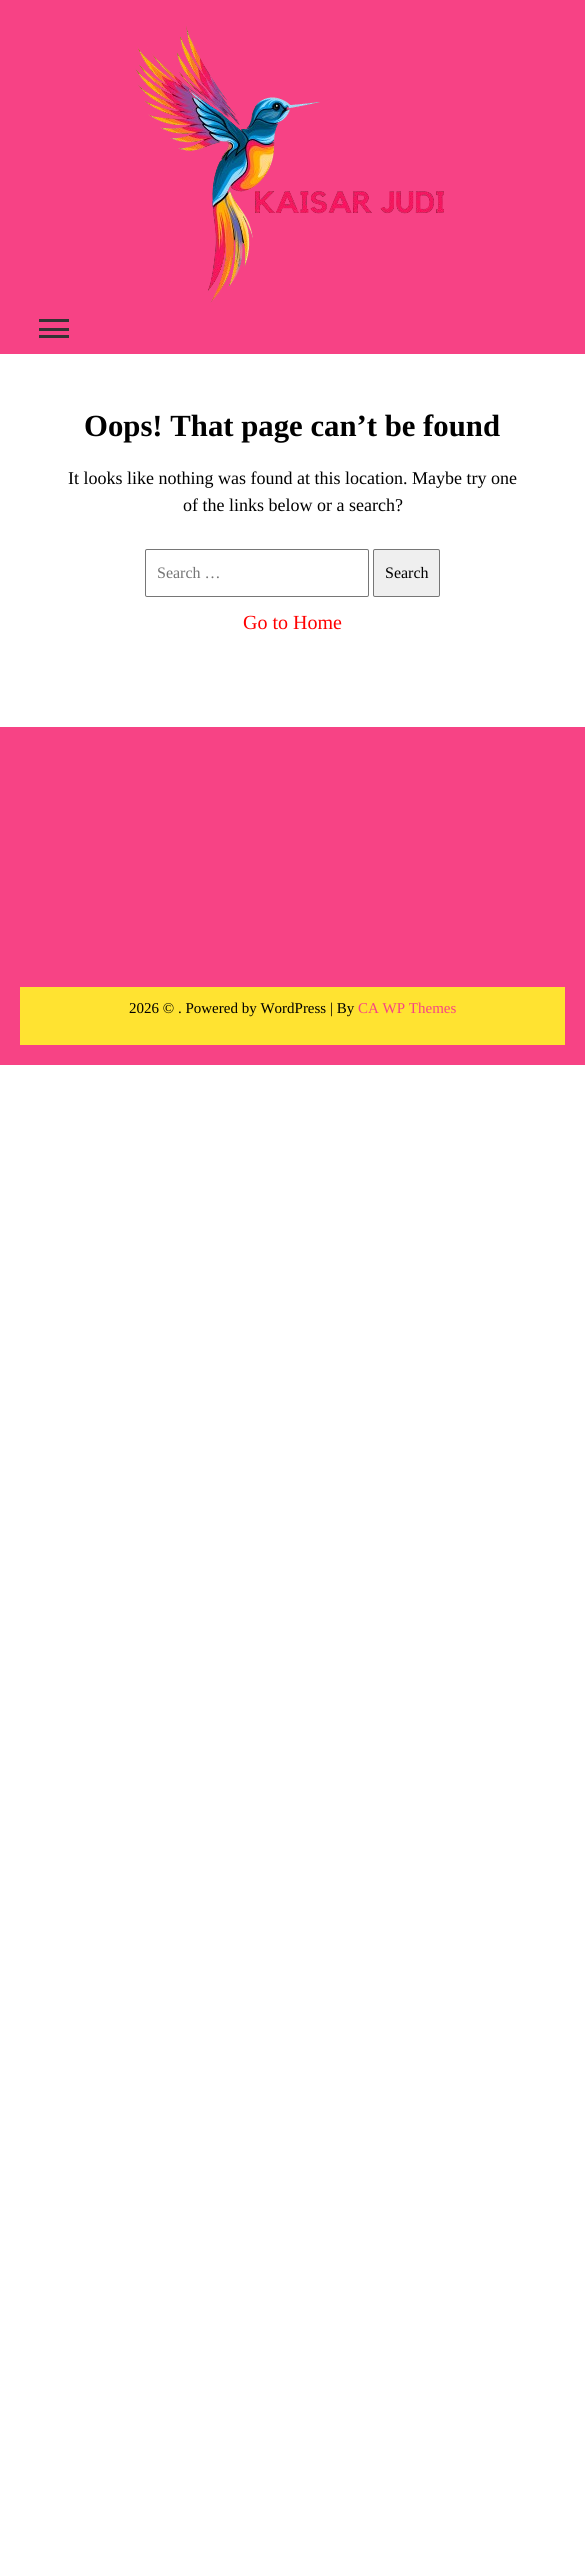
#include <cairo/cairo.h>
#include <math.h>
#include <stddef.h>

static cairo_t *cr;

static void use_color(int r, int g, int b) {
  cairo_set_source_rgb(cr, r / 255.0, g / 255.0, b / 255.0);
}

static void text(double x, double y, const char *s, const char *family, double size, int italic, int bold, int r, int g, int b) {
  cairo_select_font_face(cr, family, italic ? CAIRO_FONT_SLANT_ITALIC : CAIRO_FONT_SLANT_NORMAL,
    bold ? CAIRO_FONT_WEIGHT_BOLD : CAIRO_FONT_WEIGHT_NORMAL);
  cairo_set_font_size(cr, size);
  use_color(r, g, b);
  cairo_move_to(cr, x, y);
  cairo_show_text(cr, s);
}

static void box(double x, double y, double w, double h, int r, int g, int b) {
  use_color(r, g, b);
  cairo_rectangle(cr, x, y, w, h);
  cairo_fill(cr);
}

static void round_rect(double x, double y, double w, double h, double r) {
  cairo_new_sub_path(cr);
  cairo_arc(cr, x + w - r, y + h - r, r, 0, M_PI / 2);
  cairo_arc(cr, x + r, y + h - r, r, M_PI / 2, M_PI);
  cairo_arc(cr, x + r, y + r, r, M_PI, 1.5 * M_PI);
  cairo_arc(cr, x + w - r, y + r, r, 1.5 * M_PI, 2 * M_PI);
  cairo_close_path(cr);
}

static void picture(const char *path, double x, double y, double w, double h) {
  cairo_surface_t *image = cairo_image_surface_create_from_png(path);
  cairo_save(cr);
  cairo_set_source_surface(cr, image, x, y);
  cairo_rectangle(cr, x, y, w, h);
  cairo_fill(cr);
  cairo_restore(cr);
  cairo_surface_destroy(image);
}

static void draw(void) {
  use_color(255, 255, 255);
  cairo_paint(cr);
  box(0, 0, 585, 354, 247, 66, 133);
  picture("img_01.png", 135, 26, 309, 277);
  box(39, 319, 30, 3, 51, 51, 51);
  box(39, 328, 30, 3, 51, 51, 51);
  box(39, 335, 30, 3, 51, 51, 51);
  round_rect(145.5, 549.5, 223, 47, 1.5);
  use_color(118, 118, 118);
  cairo_set_line_width(cr, 1);
  cairo_stroke(cr);
  use_color(239, 239, 239);
  round_rect(373.5, 549.5, 66, 47, 1.5);
  cairo_fill_preserve(cr);
  use_color(118, 118, 118);
  cairo_stroke(cr);
  box(0, 727, 585, 338, 247, 67, 133);
  box(20, 987, 545, 58, 255, 227, 49);
  text(84, 436, "Oops! That page can’t be found", "Liberation Serif", 30.75, 0, 1, 0, 0, 0);
  text(68, 484, "It looks like nothing was found at this location. Maybe try one", "Liberation Serif", 18, 0, 0, 0, 0, 0);
  text(183, 511, "of the links below or a search?", "Liberation Serif", 18, 0, 0, 0, 0, 0);
  text(157, 578, "Search …", "Liberation Serif", 16, 0, 0, 117, 117, 117);
  text(385, 578, "Search", "Liberation Serif", 16, 0, 0, 0, 0, 0);
  text(243, 629, "Go to Home", "Liberation Serif", 20, 0, 0, 255, 0, 0);
  text(129, 1013, "2026 © . Powered by WordPress | By", "Liberation Serif", 15, 0, 0, 0, 0, 0);
  text(358, 1013, "CA WP Themes", "Liberation Serif", 15, 0, 0, 247, 67, 133);
}

int main(void) {
  cairo_surface_t *surface = cairo_image_surface_create(CAIRO_FORMAT_RGB24, 585, 2556);
  cr = cairo_create(surface);
  cairo_font_options_t *options = cairo_font_options_create();
  cairo_font_options_set_hint_metrics(options, CAIRO_HINT_METRICS_OFF);
  cairo_font_options_set_hint_style(options, CAIRO_HINT_STYLE_NONE);
  cairo_set_font_options(cr, options);
  cairo_set_miter_limit(cr, 4);
  draw();
  cairo_surface_write_to_png(surface, "out.png");
  cairo_font_options_destroy(options);
  cairo_destroy(cr);
  cairo_surface_destroy(surface);
  return 0;
}
